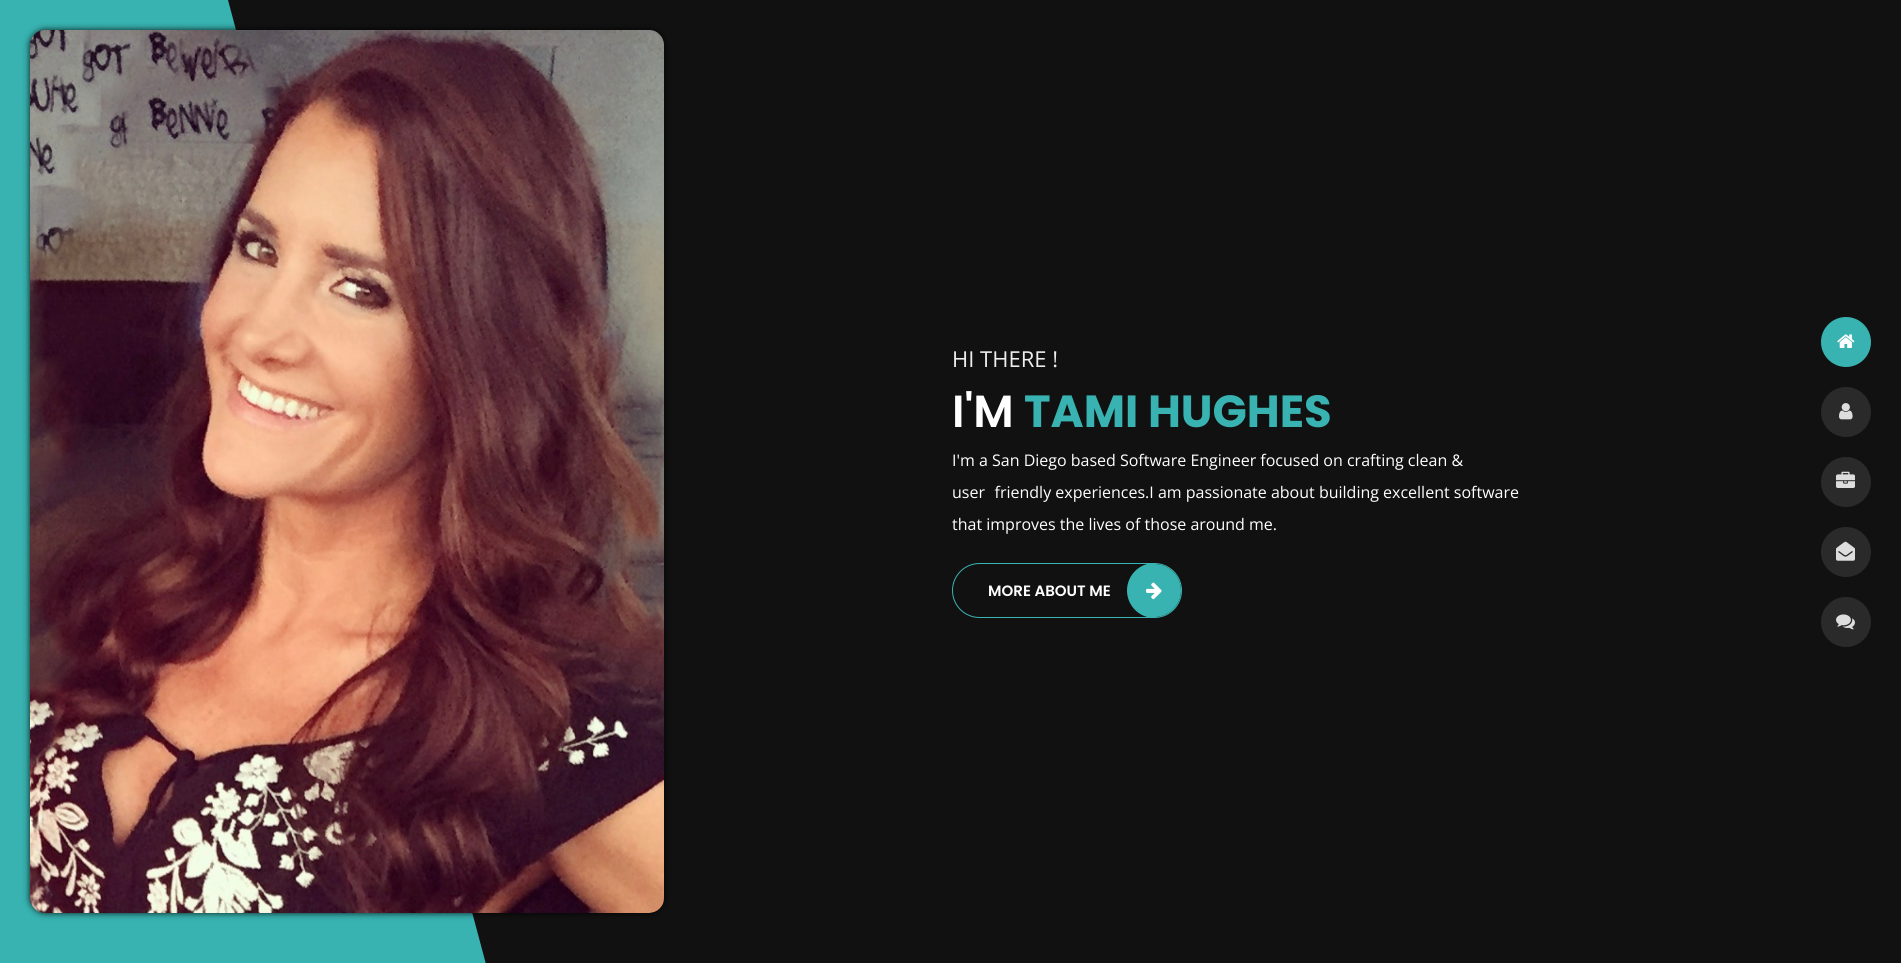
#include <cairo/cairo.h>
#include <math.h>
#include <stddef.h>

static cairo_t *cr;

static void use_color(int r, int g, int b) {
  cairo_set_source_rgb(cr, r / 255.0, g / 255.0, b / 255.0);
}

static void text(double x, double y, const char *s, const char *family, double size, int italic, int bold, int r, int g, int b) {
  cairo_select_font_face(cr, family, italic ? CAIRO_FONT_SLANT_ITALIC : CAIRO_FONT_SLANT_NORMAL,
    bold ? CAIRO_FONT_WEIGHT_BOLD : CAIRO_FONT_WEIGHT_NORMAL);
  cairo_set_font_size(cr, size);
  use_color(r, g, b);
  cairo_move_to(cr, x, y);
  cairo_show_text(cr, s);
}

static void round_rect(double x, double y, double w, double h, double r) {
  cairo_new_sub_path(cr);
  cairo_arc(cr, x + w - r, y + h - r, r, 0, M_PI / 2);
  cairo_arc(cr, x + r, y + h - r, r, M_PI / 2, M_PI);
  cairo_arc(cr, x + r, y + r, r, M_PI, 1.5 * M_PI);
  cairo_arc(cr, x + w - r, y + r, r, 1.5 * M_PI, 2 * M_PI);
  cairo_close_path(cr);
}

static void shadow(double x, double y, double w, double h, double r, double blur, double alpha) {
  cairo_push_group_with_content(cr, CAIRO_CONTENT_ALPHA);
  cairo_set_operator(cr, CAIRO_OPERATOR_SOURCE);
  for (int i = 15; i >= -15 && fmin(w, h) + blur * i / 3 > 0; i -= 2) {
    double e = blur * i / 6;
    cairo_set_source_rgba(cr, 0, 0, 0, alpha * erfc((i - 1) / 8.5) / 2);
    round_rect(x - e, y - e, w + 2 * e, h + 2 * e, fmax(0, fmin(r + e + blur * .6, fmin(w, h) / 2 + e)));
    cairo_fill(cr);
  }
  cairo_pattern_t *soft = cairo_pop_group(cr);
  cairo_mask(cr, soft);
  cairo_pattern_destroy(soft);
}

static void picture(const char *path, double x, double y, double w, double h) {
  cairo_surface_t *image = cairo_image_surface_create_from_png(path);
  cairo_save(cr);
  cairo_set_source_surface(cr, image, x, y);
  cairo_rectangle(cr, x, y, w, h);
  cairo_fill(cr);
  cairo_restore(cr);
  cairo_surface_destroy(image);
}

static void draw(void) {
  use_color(17, 17, 17);
  cairo_paint(cr);
  use_color(56, 179, 177);
  cairo_new_path(cr);
  cairo_move_to(cr, -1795, -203);
  cairo_line_to(cr, 42, -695);
  cairo_line_to(cr, 540, 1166);
  cairo_line_to(cr, -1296, 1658);
  cairo_close_path(cr);
  cairo_fill(cr);
  use_color(0, 0, 0);
  shadow(30, 30, 634, 883, 15, 3.5, 0.9);
  picture("img_01.png", 30, 30, 634, 883);
  round_rect(952.5, 563.5, 229, 54, 27);
  use_color(56, 179, 177);
  cairo_set_line_width(cr, 1);
  cairo_stroke(cr);
  cairo_save(cr);
  round_rect(953, 564, 228, 53, 26.5);
  cairo_clip(cr);
  cairo_arc(cr, 1154.5, 590.5, 27.5, 0, 2 * M_PI);
  cairo_fill(cr);
  cairo_restore(cr);
  picture("img_02.png", 1146, 582, 16, 18);
  cairo_arc(cr, 1846, 342, 25, 0, 2 * M_PI);
  cairo_fill(cr);
  picture("img_03.png", 1837, 334, 18, 14);
  use_color(43, 42, 42);
  cairo_arc(cr, 1846, 412, 25, 0, 2 * M_PI);
  cairo_fill(cr);
  picture("img_04.png", 1839, 403, 14, 17);
  cairo_arc(cr, 1846, 482, 25, 0, 2 * M_PI);
  cairo_fill(cr);
  picture("img_05.png", 1836, 471, 19, 17);
  cairo_arc(cr, 1846, 552, 25, 0, 2 * M_PI);
  cairo_fill(cr);
  picture("img_06.png", 1836, 541, 19, 20);
  cairo_arc(cr, 1846, 622, 25, 0, 2 * M_PI);
  cairo_fill(cr);
  picture("img_07.png", 1836, 614, 19, 16);
  text(952, 367, "HI THERE !", "Open Sans", 22, 0, 0, 238, 238, 238);
  text(952, 427, "I'M", "Poppins SemiBold", 45, 0, 0, 255, 255, 255);
  text(1024, 427, "TAMI HUGHES", "Poppins", 45, 0, 1, 56, 179, 177);
  text(952, 466, "I'm a San Diego based Software Engineer focused on crafting clean &", "Open Sans", 16, 0, 0, 255, 255, 255);
  text(952, 498, "user‑friendly experiences.I am passionate about building excellent software", "Open Sans", 16, 0, 0, 255, 255, 255);
  text(952, 530, "that improves the lives of those around me.", "Open Sans", 16, 0, 0, 255, 255, 255);
  text(988, 596, "MORE ABOUT ME", "Poppins SemiBold", 15, 0, 0, 255, 255, 255);
}

int main(void) {
  cairo_surface_t *surface = cairo_image_surface_create(CAIRO_FORMAT_RGB24, 1901, 963);
  cr = cairo_create(surface);
  cairo_font_options_t *options = cairo_font_options_create();
  cairo_font_options_set_hint_metrics(options, CAIRO_HINT_METRICS_OFF);
  cairo_font_options_set_hint_style(options, CAIRO_HINT_STYLE_NONE);
  cairo_set_font_options(cr, options);
  cairo_set_miter_limit(cr, 4);
  draw();
  cairo_surface_write_to_png(surface, "out.png");
  cairo_font_options_destroy(options);
  cairo_destroy(cr);
  cairo_surface_destroy(surface);
  return 0;
}
